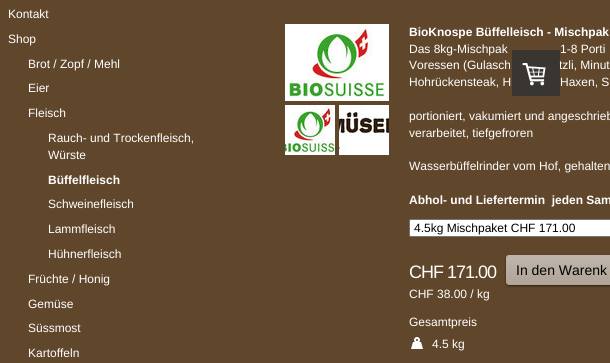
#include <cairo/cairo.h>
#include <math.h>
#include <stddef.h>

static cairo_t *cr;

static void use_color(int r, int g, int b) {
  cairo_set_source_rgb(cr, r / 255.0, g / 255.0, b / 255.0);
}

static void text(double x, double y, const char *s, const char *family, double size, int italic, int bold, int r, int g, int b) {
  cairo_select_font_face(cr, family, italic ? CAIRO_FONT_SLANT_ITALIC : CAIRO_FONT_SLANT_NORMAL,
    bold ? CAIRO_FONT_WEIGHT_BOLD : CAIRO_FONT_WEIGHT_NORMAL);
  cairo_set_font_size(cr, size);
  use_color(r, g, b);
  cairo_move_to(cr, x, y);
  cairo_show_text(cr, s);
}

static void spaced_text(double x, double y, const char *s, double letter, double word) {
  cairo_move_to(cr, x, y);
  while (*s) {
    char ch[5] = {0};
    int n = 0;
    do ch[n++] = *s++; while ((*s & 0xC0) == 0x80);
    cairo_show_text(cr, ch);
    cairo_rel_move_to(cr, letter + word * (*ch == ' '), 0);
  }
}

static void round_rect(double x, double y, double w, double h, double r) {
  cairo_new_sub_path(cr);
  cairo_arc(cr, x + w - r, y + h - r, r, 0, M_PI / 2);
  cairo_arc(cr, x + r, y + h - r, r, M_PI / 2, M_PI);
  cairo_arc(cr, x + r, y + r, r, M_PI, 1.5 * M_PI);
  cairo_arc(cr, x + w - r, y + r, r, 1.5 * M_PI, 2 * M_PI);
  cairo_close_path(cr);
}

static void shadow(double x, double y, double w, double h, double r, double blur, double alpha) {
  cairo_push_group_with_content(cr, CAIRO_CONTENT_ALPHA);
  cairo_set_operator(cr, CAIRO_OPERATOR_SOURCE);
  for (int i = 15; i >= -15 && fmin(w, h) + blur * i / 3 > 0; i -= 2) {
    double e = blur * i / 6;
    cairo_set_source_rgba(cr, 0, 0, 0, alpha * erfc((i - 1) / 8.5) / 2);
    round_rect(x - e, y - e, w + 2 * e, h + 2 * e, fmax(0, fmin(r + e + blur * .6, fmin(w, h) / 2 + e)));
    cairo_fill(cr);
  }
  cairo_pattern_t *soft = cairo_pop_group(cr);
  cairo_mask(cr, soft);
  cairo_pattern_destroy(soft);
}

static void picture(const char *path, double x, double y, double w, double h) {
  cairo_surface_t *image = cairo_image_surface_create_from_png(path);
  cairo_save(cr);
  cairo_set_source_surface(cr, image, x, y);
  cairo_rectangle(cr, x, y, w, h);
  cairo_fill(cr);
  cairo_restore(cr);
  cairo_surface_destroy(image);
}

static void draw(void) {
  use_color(96, 70, 43);
  cairo_paint(cr);
  picture("img_02.png", 285, 24, 104, 77);
  picture("img_03.png", 285, 105, 50, 50);
  picture("img_04.png", 339, 105, 50, 50);
  use_color(255, 255, 255);
  round_rect(409.5, 219.5, 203, 17, 1.5);
  cairo_fill_preserve(cr);
  use_color(118, 118, 118);
  cairo_set_line_width(cr, 1);
  cairo_stroke(cr);
  use_color(0, 0, 0);
  shadow(506, 256, 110, 30, 3, 1, 0.5);
  use_color(175, 162, 149);
  round_rect(506, 255, 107, 30, 3);
  cairo_fill(cr);
  picture("img_05.png", 506, 255, 104, 29);
  picture("img_06.png", 411, 337, 12, 12);
  text(8, 18, "Kontakt", "Liberation Sans", 12, 0, 0, 255, 255, 255);
  text(8, 43, "Shop", "Liberation Sans", 12, 0, 0, 255, 255, 255);
  text(28, 68, "Brot / Zopf / Mehl", "Liberation Sans", 12, 0, 0, 255, 255, 255);
  text(28, 92, "Eier", "Liberation Sans", 12, 0, 0, 255, 255, 255);
  text(28, 117, "Fleisch", "Liberation Sans", 12, 0, 0, 255, 255, 255);
  text(48, 142, "Rauch- und Trockenfleisch,", "Liberation Sans", 12, 0, 0, 255, 255, 255);
  text(48, 159, "Würste", "Liberation Sans", 12, 0, 0, 255, 255, 255);
  text(48, 184, "Büffelfleisch", "Liberation Sans", 12, 0, 1, 255, 255, 255);
  text(48, 208, "Schweinefleisch", "Liberation Sans", 12, 0, 0, 255, 255, 255);
  text(48, 233, "Lammfleisch", "Liberation Sans", 12, 0, 0, 255, 255, 255);
  text(48, 258, "Hühnerfleisch", "Liberation Sans", 12, 0, 0, 255, 255, 255);
  text(28, 283, "Früchte / Honig", "Liberation Sans", 12, 0, 0, 255, 255, 255);
  text(28, 308, "Gemüse", "Liberation Sans", 12, 0, 0, 255, 255, 255);
  text(28, 332, "Süssmost", "Liberation Sans", 12, 0, 0, 255, 255, 255);
  text(28, 357, "Kartoffeln", "Liberation Sans", 12, 0, 0, 255, 255, 255);
  text(409, 36, "BioKnospe Büffelleisch - Mischpak", "Liberation Sans", 12, 0, 1, 255, 255, 255);
  text(409, 53, "Das 8kg-Mischpak", "Liberation Sans", 12, 0, 0, 255, 255, 255);
  text(560, 53, "1-8 Porti", "Liberation Sans", 12, 0, 0, 255, 255, 255);
  text(409, 69, "Voressen (Gulasch", "Liberation Sans", 12, 0, 0, 255, 255, 255);
  text(559, 69, "tzli, Minut", "Liberation Sans", 12, 0, 0, 255, 255, 255);
  cairo_set_source_rgba(cr, 0.2, 0.2, 0.2, 0.85);
  round_rect(512, 50, 48, 46, 1);
  cairo_fill(cr);
  picture("img_01.png", 522, 63, 24, 23);
  text(409, 86, "Hohrückensteak, H", "Liberation Sans", 12, 0, 0, 255, 255, 255);
  text(560, 86, "Haxen, S", "Liberation Sans", 12, 0, 0, 255, 255, 255);
  text(409, 120, "portioniert, vakumiert und angeschrieb", "Liberation Sans", 12, 0, 0, 255, 255, 255);
  text(409, 137, "verarbeitet, tiefgefroren", "Liberation Sans", 12, 0, 0, 255, 255, 255);
  text(409, 170, "Wasserbüffelrinder vom Hof, gehalten", "Liberation Sans", 12, 0, 0, 255, 255, 255);
  text(409, 204, "Abhol- und Liefertermin  jeden Sam", "Liberation Sans", 12, 0, 1, 255, 255, 255);
  text(414, 232, "4.5kg Mischpaket CHF 171.00", "Liberation Sans", 12, 0, 0, 0, 0, 0);
  cairo_set_font_size(cr, 18);
  use_color(255, 255, 255);
  spaced_text(409, 278, "CHF 171.00", -1, 0);
  text(409, 298, "CHF 38.00 / kg", "Liberation Sans", 12, 0, 0, 255, 255, 255);
  text(516, 275, "In den Warenk", "Liberation Sans", 14, 0, 0, 0, 0, 0);
  text(409, 326, "Gesamtpreis", "Liberation Sans", 12, 0, 0, 255, 255, 255);
  text(432, 348, "4.5 kg", "Liberation Sans", 12, 0, 0, 255, 255, 255);
}

int main(void) {
  cairo_surface_t *surface = cairo_image_surface_create(CAIRO_FORMAT_RGB24, 610, 363);
  cr = cairo_create(surface);
  cairo_font_options_t *options = cairo_font_options_create();
  cairo_font_options_set_hint_metrics(options, CAIRO_HINT_METRICS_OFF);
  cairo_font_options_set_hint_style(options, CAIRO_HINT_STYLE_NONE);
  cairo_set_font_options(cr, options);
  cairo_set_miter_limit(cr, 4);
  draw();
  cairo_surface_write_to_png(surface, "out.png");
  cairo_font_options_destroy(options);
  cairo_destroy(cr);
  cairo_surface_destroy(surface);
  return 0;
}
